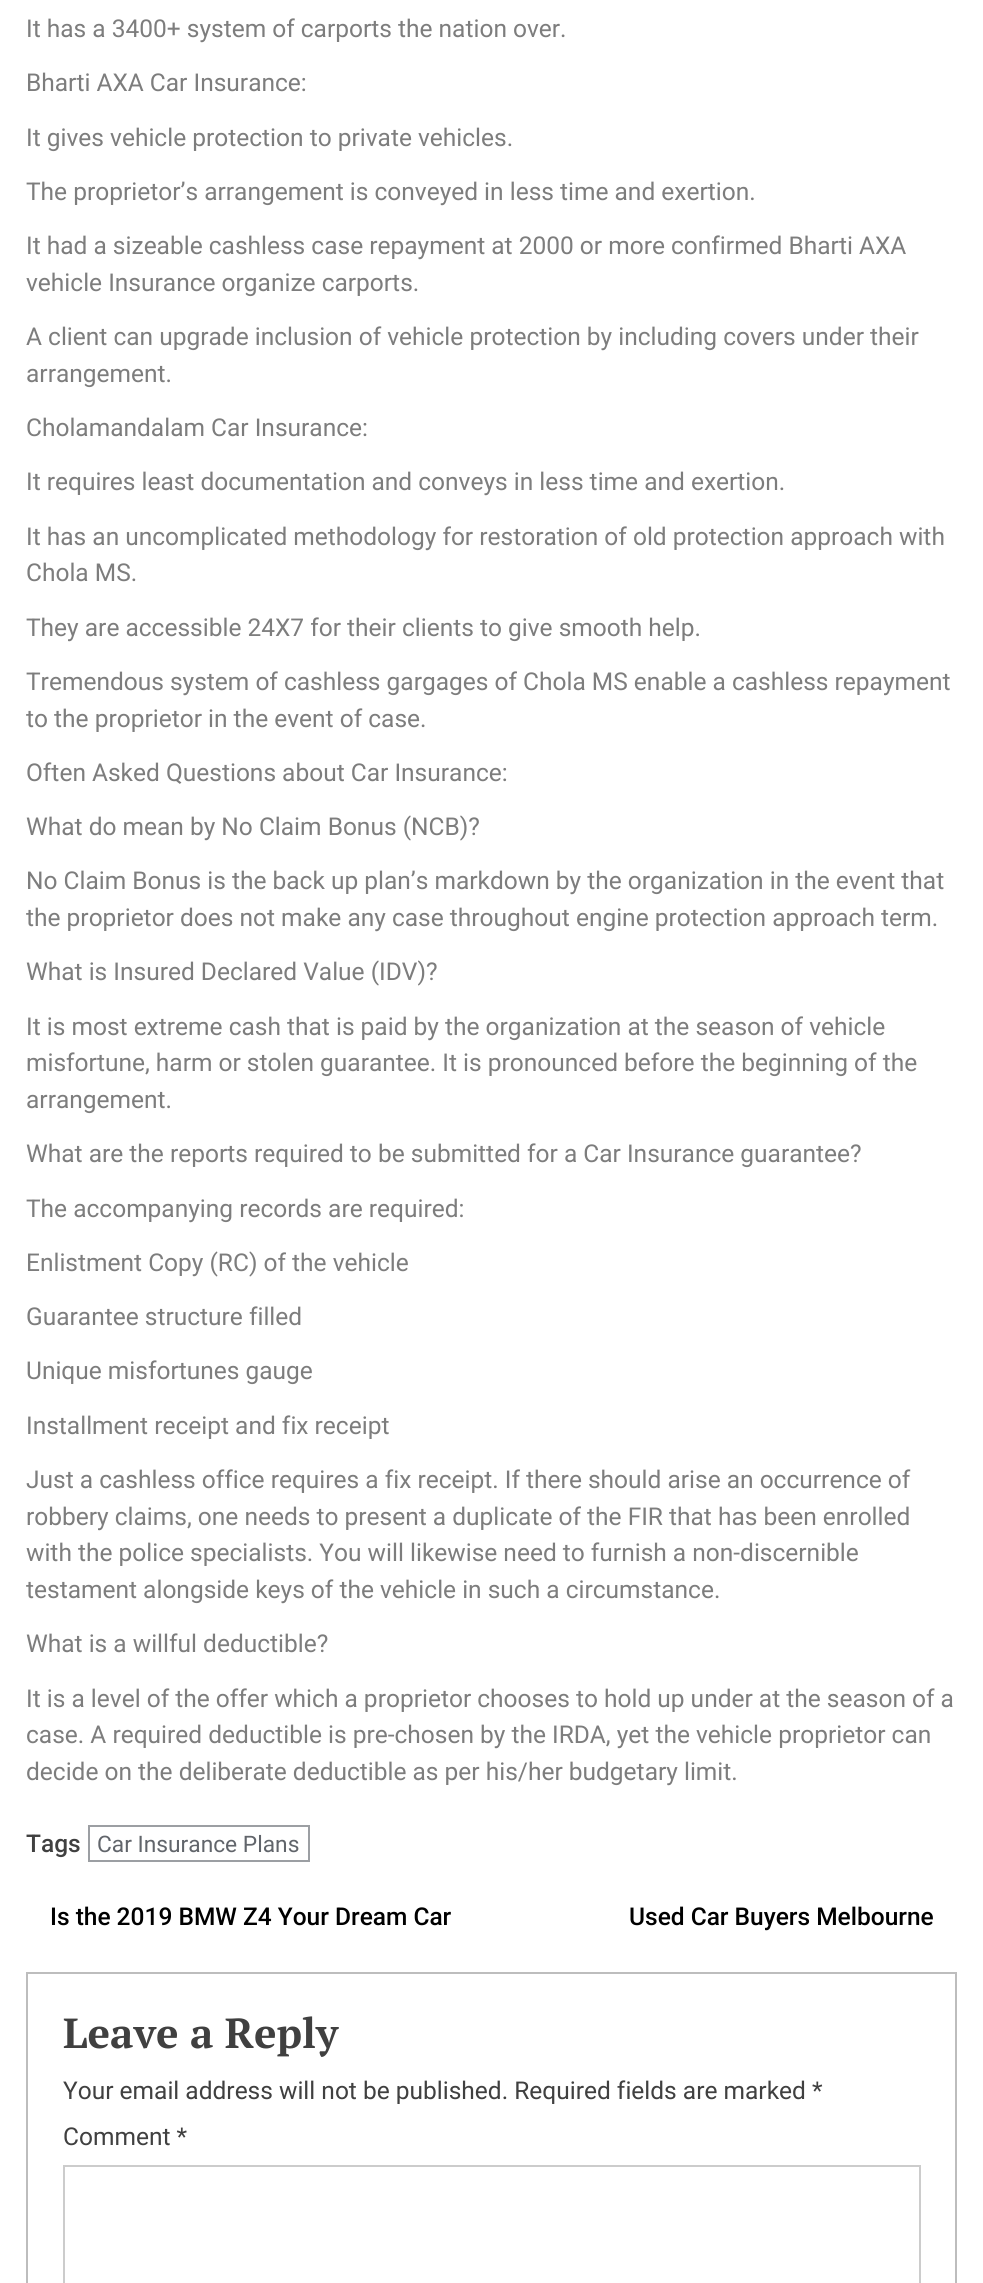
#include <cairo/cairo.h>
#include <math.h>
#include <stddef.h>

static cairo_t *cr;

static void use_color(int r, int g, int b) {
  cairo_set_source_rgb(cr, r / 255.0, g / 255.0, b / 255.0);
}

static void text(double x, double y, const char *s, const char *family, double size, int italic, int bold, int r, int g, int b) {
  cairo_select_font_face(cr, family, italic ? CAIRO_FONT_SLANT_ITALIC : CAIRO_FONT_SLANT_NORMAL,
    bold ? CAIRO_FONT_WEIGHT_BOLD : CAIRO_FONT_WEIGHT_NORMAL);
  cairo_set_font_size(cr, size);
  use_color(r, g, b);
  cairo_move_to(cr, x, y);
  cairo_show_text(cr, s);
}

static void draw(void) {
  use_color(255, 255, 255);
  cairo_paint(cr);
  cairo_rectangle(cr, 89, 1826, 220, 35);
  use_color(156, 159, 163);
  cairo_stroke(cr);
  cairo_rectangle(cr, 27, 1973, 929, 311);
  use_color(189, 189, 189);
  cairo_stroke(cr);
  cairo_rectangle(cr, 64, 2166, 856, 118);
  use_color(204, 204, 204);
  cairo_stroke(cr);
  text(26, 37, "It has a 3400+ system of carports the nation over.", "Roboto", 24.5, 0, 0, 125, 125, 125);
  text(26, 91, "Bharti AXA Car Insurance:", "Roboto", 24.5, 0, 0, 125, 125, 125);
  text(26, 146, "It gives vehicle protection to private vehicles.", "Roboto", 24.5, 0, 0, 125, 125, 125);
  text(26, 200, "The proprietor’s arrangement is conveyed in less time and exertion.", "Roboto", 24.5, 0, 0, 125, 125, 125);
  text(26, 254, "It had a sizeable cashless case repayment at 2000 or more confirmed Bharti AXA", "Roboto", 24.5, 0, 0, 125, 125, 125);
  text(26, 291, "vehicle Insurance organize carports.", "Roboto", 24.5, 0, 0, 125, 125, 125);
  text(26, 345, "A client can upgrade inclusion of vehicle protection by including covers under their", "Roboto", 24.5, 0, 0, 125, 125, 125);
  text(26, 382, "arrangement.", "Roboto", 24.5, 0, 0, 125, 125, 125);
  text(26, 436, "Cholamandalam Car Insurance:", "Roboto", 24.5, 0, 0, 125, 125, 125);
  text(26, 490, "It requires least documentation and conveys in less time and exertion.", "Roboto", 24.5, 0, 0, 125, 125, 125);
  text(26, 545, "It has an uncomplicated methodology for restoration of old protection approach with", "Roboto", 24.5, 0, 0, 125, 125, 125);
  text(26, 581, "Chola MS.", "Roboto", 24.5, 0, 0, 125, 125, 125);
  text(26, 636, "They are accessible 24X7 for their clients to give smooth help.", "Roboto", 24.5, 0, 0, 125, 125, 125);
  text(26, 690, "Tremendous system of cashless gargages of Chola MS enable a cashless repayment", "Roboto", 24.5, 0, 0, 125, 125, 125);
  text(26, 727, "to the proprietor in the event of case.", "Roboto", 24.5, 0, 0, 125, 125, 125);
  text(26, 781, "Often Asked Questions about Car Insurance:", "Roboto", 24.5, 0, 0, 125, 125, 125);
  text(26, 835, "What do mean by No Claim Bonus (NCB)?", "Roboto", 24.5, 0, 0, 125, 125, 125);
  text(26, 889, "No Claim Bonus is the back up plan’s markdown by the organization in the event that", "Roboto", 24.5, 0, 0, 125, 125, 125);
  text(26, 926, "the proprietor does not make any case throughout engine protection approach term.", "Roboto", 24.5, 0, 0, 125, 125, 125);
  text(26, 980, "What is Insured Declared Value (IDV)?", "Roboto", 24.5, 0, 0, 125, 125, 125);
  text(26, 1035, "It is most extreme cash that is paid by the organization at the season of vehicle", "Roboto", 24.5, 0, 0, 125, 125, 125);
  text(26, 1071, "misfortune, harm or stolen guarantee. It is pronounced before the beginning of the", "Roboto", 24.5, 0, 0, 125, 125, 125);
  text(26, 1108, "arrangement.", "Roboto", 24.5, 0, 0, 125, 125, 125);
  text(26, 1162, "What are the reports required to be submitted for a Car Insurance guarantee?", "Roboto", 24.5, 0, 0, 125, 125, 125);
  text(26, 1217, "The accompanying records are required:", "Roboto", 24.5, 0, 0, 125, 125, 125);
  text(26, 1271, "Enlistment Copy (RC) of the vehicle", "Roboto", 24.5, 0, 0, 125, 125, 125);
  text(26, 1325, "Guarantee structure filled", "Roboto", 24.5, 0, 0, 125, 125, 125);
  text(26, 1379, "Unique misfortunes gauge", "Roboto", 24.5, 0, 0, 125, 125, 125);
  text(26, 1434, "Installment receipt and fix receipt", "Roboto", 24.5, 0, 0, 125, 125, 125);
  text(26, 1488, "Just a cashless office requires a fix receipt. If there should arise an occurrence of", "Roboto", 24.5, 0, 0, 125, 125, 125);
  text(26, 1525, "robbery claims, one needs to present a duplicate of the FIR that has been enrolled", "Roboto", 24.5, 0, 0, 125, 125, 125);
  text(26, 1561, "with the police specialists. You will likewise need to furnish a non-discernible", "Roboto", 24.5, 0, 0, 125, 125, 125);
  text(26, 1598, "testament alongside keys of the vehicle in such a circumstance.", "Roboto", 24.5, 0, 0, 125, 125, 125);
  text(26, 1652, "What is a willful deductible?", "Roboto", 24.5, 0, 0, 125, 125, 125);
  text(26, 1707, "It is a level of the offer which a proprietor chooses to hold up under at the season of a", "Roboto", 24.5, 0, 0, 125, 125, 125);
  text(26, 1743, "case. A required deductible is pre-chosen by the IRDA, yet the vehicle proprietor can", "Roboto", 24.5, 0, 0, 125, 125, 125);
  text(26, 1780, "decide on the deliberate deductible as per his/her budgetary limit.", "Roboto", 24.5, 0, 0, 125, 125, 125);
  text(26, 1852, "Tags", "Roboto Medium", 24.5, 0, 0, 64, 64, 64);
  text(97, 1852, "Car Insurance Plans", "Roboto", 22.75, 0, 0, 97, 101, 107);
  text(50, 1925, "Is the 2019 BMW Z4 Your Dream Car", "Roboto Medium", 24.5, 0, 0, 0, 0, 0);
  text(629, 1925, "Used Car Buyers Melbourne", "Roboto Medium", 24.5, 0, 0, 0, 0, 0);
  text(63, 2048, "Leave a Reply", "PT Serif", 42, 0, 1, 64, 64, 64);
  text(63, 2099, "Your email address will not be published. Required fields are marked *", "Roboto", 24.5, 0, 0, 64, 64, 64);
  text(63, 2145, "Comment *", "Roboto", 24.5, 0, 0, 64, 64, 64);
}

int main(void) {
  cairo_surface_t *surface = cairo_image_surface_create(CAIRO_FORMAT_RGB24, 983, 2283);
  cr = cairo_create(surface);
  cairo_font_options_t *options = cairo_font_options_create();
  cairo_font_options_set_hint_metrics(options, CAIRO_HINT_METRICS_OFF);
  cairo_font_options_set_hint_style(options, CAIRO_HINT_STYLE_NONE);
  cairo_set_font_options(cr, options);
  cairo_set_miter_limit(cr, 4);
  draw();
  cairo_surface_write_to_png(surface, "out.png");
  cairo_font_options_destroy(options);
  cairo_destroy(cr);
  cairo_surface_destroy(surface);
  return 0;
}
